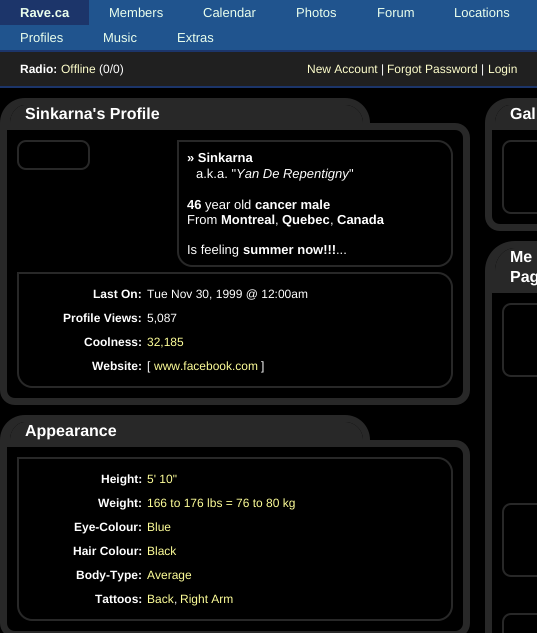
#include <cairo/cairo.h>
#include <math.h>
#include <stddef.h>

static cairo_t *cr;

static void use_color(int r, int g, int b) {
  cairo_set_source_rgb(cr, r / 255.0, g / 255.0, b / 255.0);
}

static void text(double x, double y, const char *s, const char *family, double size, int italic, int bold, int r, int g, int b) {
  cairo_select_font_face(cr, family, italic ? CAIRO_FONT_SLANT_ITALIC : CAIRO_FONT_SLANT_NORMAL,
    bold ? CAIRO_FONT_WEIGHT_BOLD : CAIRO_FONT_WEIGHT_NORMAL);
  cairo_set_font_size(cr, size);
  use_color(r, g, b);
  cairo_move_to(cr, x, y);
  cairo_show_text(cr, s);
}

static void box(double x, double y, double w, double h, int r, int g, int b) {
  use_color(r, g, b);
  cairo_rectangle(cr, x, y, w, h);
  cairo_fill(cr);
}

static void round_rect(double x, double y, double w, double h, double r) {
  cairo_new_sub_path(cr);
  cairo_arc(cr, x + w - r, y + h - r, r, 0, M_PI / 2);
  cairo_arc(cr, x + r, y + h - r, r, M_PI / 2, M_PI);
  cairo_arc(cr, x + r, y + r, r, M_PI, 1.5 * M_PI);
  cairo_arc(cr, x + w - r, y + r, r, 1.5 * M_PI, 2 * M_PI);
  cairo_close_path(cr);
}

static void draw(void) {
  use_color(0, 0, 0);
  cairo_paint(cr);
  box(0, 0, 537, 50, 32, 84, 142);
  box(0, 0, 89, 25, 28, 53, 106);
  box(0, 50, 537, 2, 28, 53, 106);
  box(0, 52, 537, 34, 32, 32, 32);
  box(0, 86, 537, 2, 28, 53, 106);
  use_color(40, 40, 40);
  cairo_new_path(cr);
  cairo_move_to(cr, 25, 105);
  cairo_line_to(cr, 345, 105);
  cairo_curve_to(cr, 355, 105, 363, 113, 363, 123);
  cairo_line_to(cr, 10, 123);
  cairo_curve_to(cr, 10, 113, 17, 105, 25, 105);
  cairo_close_path(cr);
  cairo_fill(cr);
  cairo_set_fill_rule(cr, CAIRO_FILL_RULE_EVEN_ODD);
  cairo_new_path(cr);
  cairo_move_to(cr, 25, 98);
  cairo_line_to(cr, 345, 98);
  cairo_curve_to(cr, 359, 98, 370, 109, 370, 123);
  cairo_line_to(cr, 0, 123);
  cairo_curve_to(cr, 0, 109, 11, 98, 25, 98);
  cairo_close_path(cr);
  cairo_move_to(cr, 25, 105);
  cairo_line_to(cr, 345, 105);
  cairo_curve_to(cr, 355, 105, 363, 113, 363, 123);
  cairo_line_to(cr, 10, 123);
  cairo_curve_to(cr, 10, 113, 17, 105, 25, 105);
  cairo_close_path(cr);
  cairo_fill(cr);
  cairo_new_path(cr);
  cairo_move_to(cr, 3.5, 126.5);
  cairo_line_to(cr, 455, 126.5);
  cairo_curve_to(cr, 461.5, 126.5, 466.5, 131.5, 466.5, 138);
  cairo_line_to(cr, 466.5, 390);
  cairo_curve_to(cr, 466.5, 396.5, 461.5, 401.5, 455, 401.5);
  cairo_line_to(cr, 15, 401.5);
  cairo_curve_to(cr, 8.5, 401.5, 3.5, 396.5, 3.5, 390);
  cairo_close_path(cr);
  cairo_set_line_width(cr, 7);
  cairo_stroke(cr);
  round_rect(18, 141, 71, 28, 8);
  cairo_set_line_width(cr, 2);
  cairo_stroke(cr);
  cairo_new_path(cr);
  cairo_move_to(cr, 178, 141);
  cairo_line_to(cr, 438, 141);
  cairo_curve_to(cr, 445.5, 141, 452, 147.5, 452, 155);
  cairo_line_to(cr, 452, 252);
  cairo_curve_to(cr, 452, 259.5, 445.5, 266, 438, 266);
  cairo_line_to(cr, 192, 266);
  cairo_curve_to(cr, 184.5, 266, 178, 259.5, 178, 252);
  cairo_close_path(cr);
  cairo_stroke(cr);
  cairo_new_path(cr);
  cairo_move_to(cr, 18, 273);
  cairo_line_to(cr, 438, 273);
  cairo_curve_to(cr, 445.5, 273, 452, 279.5, 452, 287);
  cairo_line_to(cr, 452, 373);
  cairo_curve_to(cr, 452, 380.5, 445.5, 387, 438, 387);
  cairo_line_to(cr, 32, 387);
  cairo_curve_to(cr, 24.5, 387, 18, 380.5, 18, 373);
  cairo_close_path(cr);
  cairo_stroke(cr);
  cairo_set_fill_rule(cr, CAIRO_FILL_RULE_WINDING);
  cairo_new_path(cr);
  cairo_move_to(cr, 25, 422);
  cairo_line_to(cr, 345, 422);
  cairo_curve_to(cr, 355, 422, 363, 430, 363, 440);
  cairo_line_to(cr, 10, 440);
  cairo_curve_to(cr, 10, 430, 17, 422, 25, 422);
  cairo_close_path(cr);
  cairo_fill(cr);
  cairo_set_fill_rule(cr, CAIRO_FILL_RULE_EVEN_ODD);
  cairo_new_path(cr);
  cairo_move_to(cr, 25, 415);
  cairo_line_to(cr, 345, 415);
  cairo_curve_to(cr, 359, 415, 370, 426, 370, 440);
  cairo_line_to(cr, 0, 440);
  cairo_curve_to(cr, 0, 426, 11, 415, 25, 415);
  cairo_close_path(cr);
  cairo_move_to(cr, 25, 422);
  cairo_line_to(cr, 345, 422);
  cairo_curve_to(cr, 355, 422, 363, 430, 363, 440);
  cairo_line_to(cr, 10, 440);
  cairo_curve_to(cr, 10, 430, 17, 422, 25, 422);
  cairo_close_path(cr);
  cairo_fill(cr);
  cairo_new_path(cr);
  cairo_move_to(cr, 3.5, 443.5);
  cairo_line_to(cr, 455, 443.5);
  cairo_curve_to(cr, 461.5, 443.5, 466.5, 448.5, 466.5, 455);
  cairo_line_to(cr, 466.5, 623);
  cairo_curve_to(cr, 466.5, 629.5, 461.5, 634.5, 455, 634.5);
  cairo_line_to(cr, 15, 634.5);
  cairo_curve_to(cr, 8.5, 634.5, 3.5, 629.5, 3.5, 623);
  cairo_close_path(cr);
  cairo_set_line_width(cr, 7);
  cairo_stroke(cr);
  cairo_new_path(cr);
  cairo_move_to(cr, 18, 458);
  cairo_line_to(cr, 438, 458);
  cairo_curve_to(cr, 445.5, 458, 452, 464.5, 452, 472);
  cairo_line_to(cr, 452, 606);
  cairo_curve_to(cr, 452, 613.5, 445.5, 620, 438, 620);
  cairo_line_to(cr, 32, 620);
  cairo_curve_to(cr, 24.5, 620, 18, 613.5, 18, 606);
  cairo_close_path(cr);
  cairo_set_line_width(cr, 2);
  cairo_stroke(cr);
  cairo_set_fill_rule(cr, CAIRO_FILL_RULE_WINDING);
  cairo_new_path(cr);
  cairo_move_to(cr, 510, 105);
  cairo_line_to(cr, 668, 105);
  cairo_curve_to(cr, 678, 105, 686, 113, 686, 123);
  cairo_line_to(cr, 495, 123);
  cairo_curve_to(cr, 495, 113, 502, 105, 510, 105);
  cairo_close_path(cr);
  cairo_fill(cr);
  cairo_set_fill_rule(cr, CAIRO_FILL_RULE_EVEN_ODD);
  cairo_new_path(cr);
  cairo_move_to(cr, 510, 98);
  cairo_line_to(cr, 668, 98);
  cairo_curve_to(cr, 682, 98, 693, 109, 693, 123);
  cairo_line_to(cr, 485, 123);
  cairo_curve_to(cr, 485, 109, 496, 98, 510, 98);
  cairo_close_path(cr);
  cairo_move_to(cr, 510, 105);
  cairo_line_to(cr, 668, 105);
  cairo_curve_to(cr, 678, 105, 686, 113, 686, 123);
  cairo_line_to(cr, 495, 123);
  cairo_curve_to(cr, 495, 113, 502, 105, 510, 105);
  cairo_close_path(cr);
  cairo_fill(cr);
  cairo_new_path(cr);
  cairo_move_to(cr, 488.5, 126.5);
  cairo_line_to(cr, 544, 126.5);
  cairo_curve_to(cr, 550.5, 126.5, 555.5, 131.5, 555.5, 138);
  cairo_line_to(cr, 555.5, 216);
  cairo_curve_to(cr, 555.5, 222.5, 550.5, 227.5, 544, 227.5);
  cairo_line_to(cr, 500, 227.5);
  cairo_curve_to(cr, 493.5, 227.5, 488.5, 222.5, 488.5, 216);
  cairo_close_path(cr);
  cairo_set_line_width(cr, 7);
  cairo_stroke(cr);
  round_rect(503, 141, 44, 72, 8);
  cairo_set_line_width(cr, 2);
  cairo_stroke(cr);
  cairo_set_fill_rule(cr, CAIRO_FILL_RULE_WINDING);
  cairo_new_path(cr);
  cairo_move_to(cr, 515, 248);
  cairo_line_to(cr, 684, 248);
  cairo_curve_to(cr, 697, 248, 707, 258, 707, 271);
  cairo_line_to(cr, 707, 286);
  cairo_line_to(cr, 495, 286);
  cairo_line_to(cr, 495, 271);
  cairo_curve_to(cr, 495, 258, 504, 248, 515, 248);
  cairo_close_path(cr);
  cairo_fill(cr);
  cairo_set_fill_rule(cr, CAIRO_FILL_RULE_EVEN_ODD);
  cairo_new_path(cr);
  cairo_move_to(cr, 515, 241);
  cairo_line_to(cr, 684, 241);
  cairo_curve_to(cr, 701, 241, 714, 254, 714, 271);
  cairo_line_to(cr, 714, 286);
  cairo_line_to(cr, 485, 286);
  cairo_line_to(cr, 485, 271);
  cairo_curve_to(cr, 485, 254, 498, 241, 515, 241);
  cairo_close_path(cr);
  cairo_move_to(cr, 515, 248);
  cairo_line_to(cr, 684, 248);
  cairo_curve_to(cr, 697, 248, 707, 258, 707, 271);
  cairo_line_to(cr, 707, 286);
  cairo_line_to(cr, 495, 286);
  cairo_line_to(cr, 495, 271);
  cairo_curve_to(cr, 495, 258, 504, 248, 515, 248);
  cairo_close_path(cr);
  cairo_fill(cr);
  cairo_rectangle(cr, 488.5, 289.5, 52, 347);
  cairo_set_line_width(cr, 7);
  cairo_stroke(cr);
  round_rect(503, 304, 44, 72, 8);
  cairo_set_line_width(cr, 2);
  cairo_stroke(cr);
  round_rect(503, 504, 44, 72, 8);
  cairo_stroke(cr);
  round_rect(503, 614, 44, 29, 8);
  cairo_stroke(cr);
  text(20, 17, "Rave.ca", "Liberation Sans", 13, 0, 1, 234, 255, 237);
  text(109, 17, "Members", "Liberation Sans", 13, 0, 0, 234, 255, 237);
  text(203, 17, "Calendar", "Liberation Sans", 13, 0, 0, 234, 255, 237);
  text(296, 17, "Photos", "Liberation Sans", 13, 0, 0, 234, 255, 237);
  text(377, 17, "Forum", "Liberation Sans", 13, 0, 0, 234, 255, 237);
  text(454, 17, "Locations", "Liberation Sans", 13, 0, 0, 234, 255, 237);
  text(20, 42, "Profiles", "Liberation Sans", 13, 0, 0, 234, 255, 237);
  text(103, 42, "Music", "Liberation Sans", 13, 0, 0, 234, 255, 237);
  text(177, 42, "Extras", "Liberation Sans", 13, 0, 0, 234, 255, 237);
  text(20, 73, "Radio:", "Liberation Sans", 12, 0, 1, 255, 255, 255);
  text(61, 73, "Offline", "Liberation Sans", 12, 0, 0, 255, 255, 204);
  text(99, 73, "(0/0)", "Liberation Sans", 12, 0, 0, 255, 255, 255);
  text(307, 73, "New Account", "Liberation Sans", 12, 0, 0, 255, 255, 204);
  text(381, 73, "|", "Liberation Sans", 12, 0, 0, 255, 255, 255);
  text(387, 73, "Forgot Password", "Liberation Sans", 12, 0, 0, 255, 255, 204);
  text(481, 73, "|", "Liberation Sans", 12, 0, 0, 255, 255, 255);
  text(488, 73, "Login", "Liberation Sans", 12, 0, 0, 255, 255, 204);
  text(25, 119, "Sinkarna's Profile", "Liberation Sans", 16, 0, 1, 255, 255, 255);
  text(187, 162, "» Sinkarna", "Liberation Sans", 13, 0, 1, 255, 255, 255);
  text(196, 178, "a.k.a. \"", "Liberation Sans", 13, 0, 0, 255, 255, 255);
  text(236, 178, "Yan De Repentigny", "Liberation Sans", 13, 1, 0, 255, 255, 255);
  text(349, 178, "\"", "Liberation Sans", 13, 0, 0, 255, 255, 255);
  text(187, 209, "46", "Liberation Sans", 13, 0, 1, 255, 255, 255);
  text(205, 209, "year old", "Liberation Sans", 13, 0, 0, 255, 255, 255);
  text(255, 209, "cancer male", "Liberation Sans", 13, 0, 1, 255, 255, 255);
  text(187, 224, "From", "Liberation Sans", 13, 0, 0, 255, 255, 255);
  text(221, 224, "Montreal", "Liberation Sans", 13, 0, 1, 255, 255, 255);
  text(275, 224, ",", "Liberation Sans", 13, 0, 0, 255, 255, 255);
  text(282, 224, "Quebec", "Liberation Sans", 13, 0, 1, 255, 255, 255);
  text(330, 224, ",", "Liberation Sans", 13, 0, 0, 255, 255, 255);
  text(337, 224, "Canada", "Liberation Sans", 13, 0, 1, 255, 255, 255);
  text(187, 254, "Is feeling", "Liberation Sans", 13, 0, 0, 255, 255, 255);
  text(243, 254, "summer now!!!", "Liberation Sans", 13, 0, 1, 255, 255, 255);
  text(336, 254, "...", "Liberation Sans", 13, 0, 0, 255, 255, 255);
  text(93, 298, "Last On:", "Liberation Sans", 12, 0, 1, 255, 255, 255);
  text(147, 298, "Tue Nov 30, 1999 @ 12:00am", "Liberation Sans", 12, 0, 0, 255, 255, 255);
  text(63, 322, "Profile Views:", "Liberation Sans", 12, 0, 1, 255, 255, 255);
  text(147, 322, "5,087", "Liberation Sans", 12, 0, 0, 255, 255, 255);
  text(84, 346, "Coolness:", "Liberation Sans", 12, 0, 1, 255, 255, 255);
  text(147, 346, "32,185", "Liberation Sans", 12, 0, 0, 255, 255, 153);
  text(92, 370, "Website:", "Liberation Sans", 12, 0, 1, 255, 255, 255);
  text(147, 370, "[", "Liberation Sans", 12, 0, 0, 255, 255, 255);
  text(154, 370, "www.facebook.com", "Liberation Sans", 12, 0, 0, 255, 255, 153);
  text(261, 370, "]", "Liberation Sans", 12, 0, 0, 255, 255, 255);
  text(25, 436, "Appearance", "Liberation Sans", 16, 0, 1, 255, 255, 255);
  text(101, 483, "Height:", "Liberation Sans", 12, 0, 1, 255, 255, 255);
  text(147, 483, "5' 10\"", "Liberation Sans", 12, 0, 0, 255, 255, 153);
  text(98, 507, "Weight:", "Liberation Sans", 12, 0, 1, 255, 255, 255);
  text(147, 507, "166 to 176 lbs = 76 to 80 kg", "Liberation Sans", 12, 0, 0, 255, 255, 153);
  text(74, 531, "Eye-Colour:", "Liberation Sans", 12, 0, 1, 255, 255, 255);
  text(147, 531, "Blue", "Liberation Sans", 12, 0, 0, 255, 255, 153);
  text(73, 555, "Hair Colour:", "Liberation Sans", 12, 0, 1, 255, 255, 255);
  text(147, 555, "Black", "Liberation Sans", 12, 0, 0, 255, 255, 153);
  text(76, 579, "Body-Type:", "Liberation Sans", 12, 0, 1, 255, 255, 255);
  text(147, 579, "Average", "Liberation Sans", 12, 0, 0, 255, 255, 153);
  text(95, 603, "Tattoos:", "Liberation Sans", 12, 0, 1, 255, 255, 255);
  text(147, 603, "Back", "Liberation Sans", 12, 0, 0, 255, 255, 153);
  text(174, 603, ",", "Liberation Sans", 12, 0, 0, 255, 255, 255);
  text(180, 603, "Right Arm", "Liberation Sans", 12, 0, 0, 255, 255, 153);
  text(510, 119, "Gal", "Liberation Sans", 16, 0, 1, 255, 255, 255);
  text(510, 262, "Me", "Liberation Sans", 16, 0, 1, 255, 255, 255);
  text(510, 282, "Pag", "Liberation Sans", 16, 0, 1, 255, 255, 255);
}

int main(void) {
  cairo_surface_t *surface = cairo_image_surface_create(CAIRO_FORMAT_RGB24, 537, 633);
  cr = cairo_create(surface);
  cairo_font_options_t *options = cairo_font_options_create();
  cairo_font_options_set_hint_metrics(options, CAIRO_HINT_METRICS_OFF);
  cairo_font_options_set_hint_style(options, CAIRO_HINT_STYLE_NONE);
  cairo_set_font_options(cr, options);
  cairo_set_miter_limit(cr, 4);
  draw();
  cairo_surface_write_to_png(surface, "out.png");
  cairo_font_options_destroy(options);
  cairo_destroy(cr);
  cairo_surface_destroy(surface);
  return 0;
}
